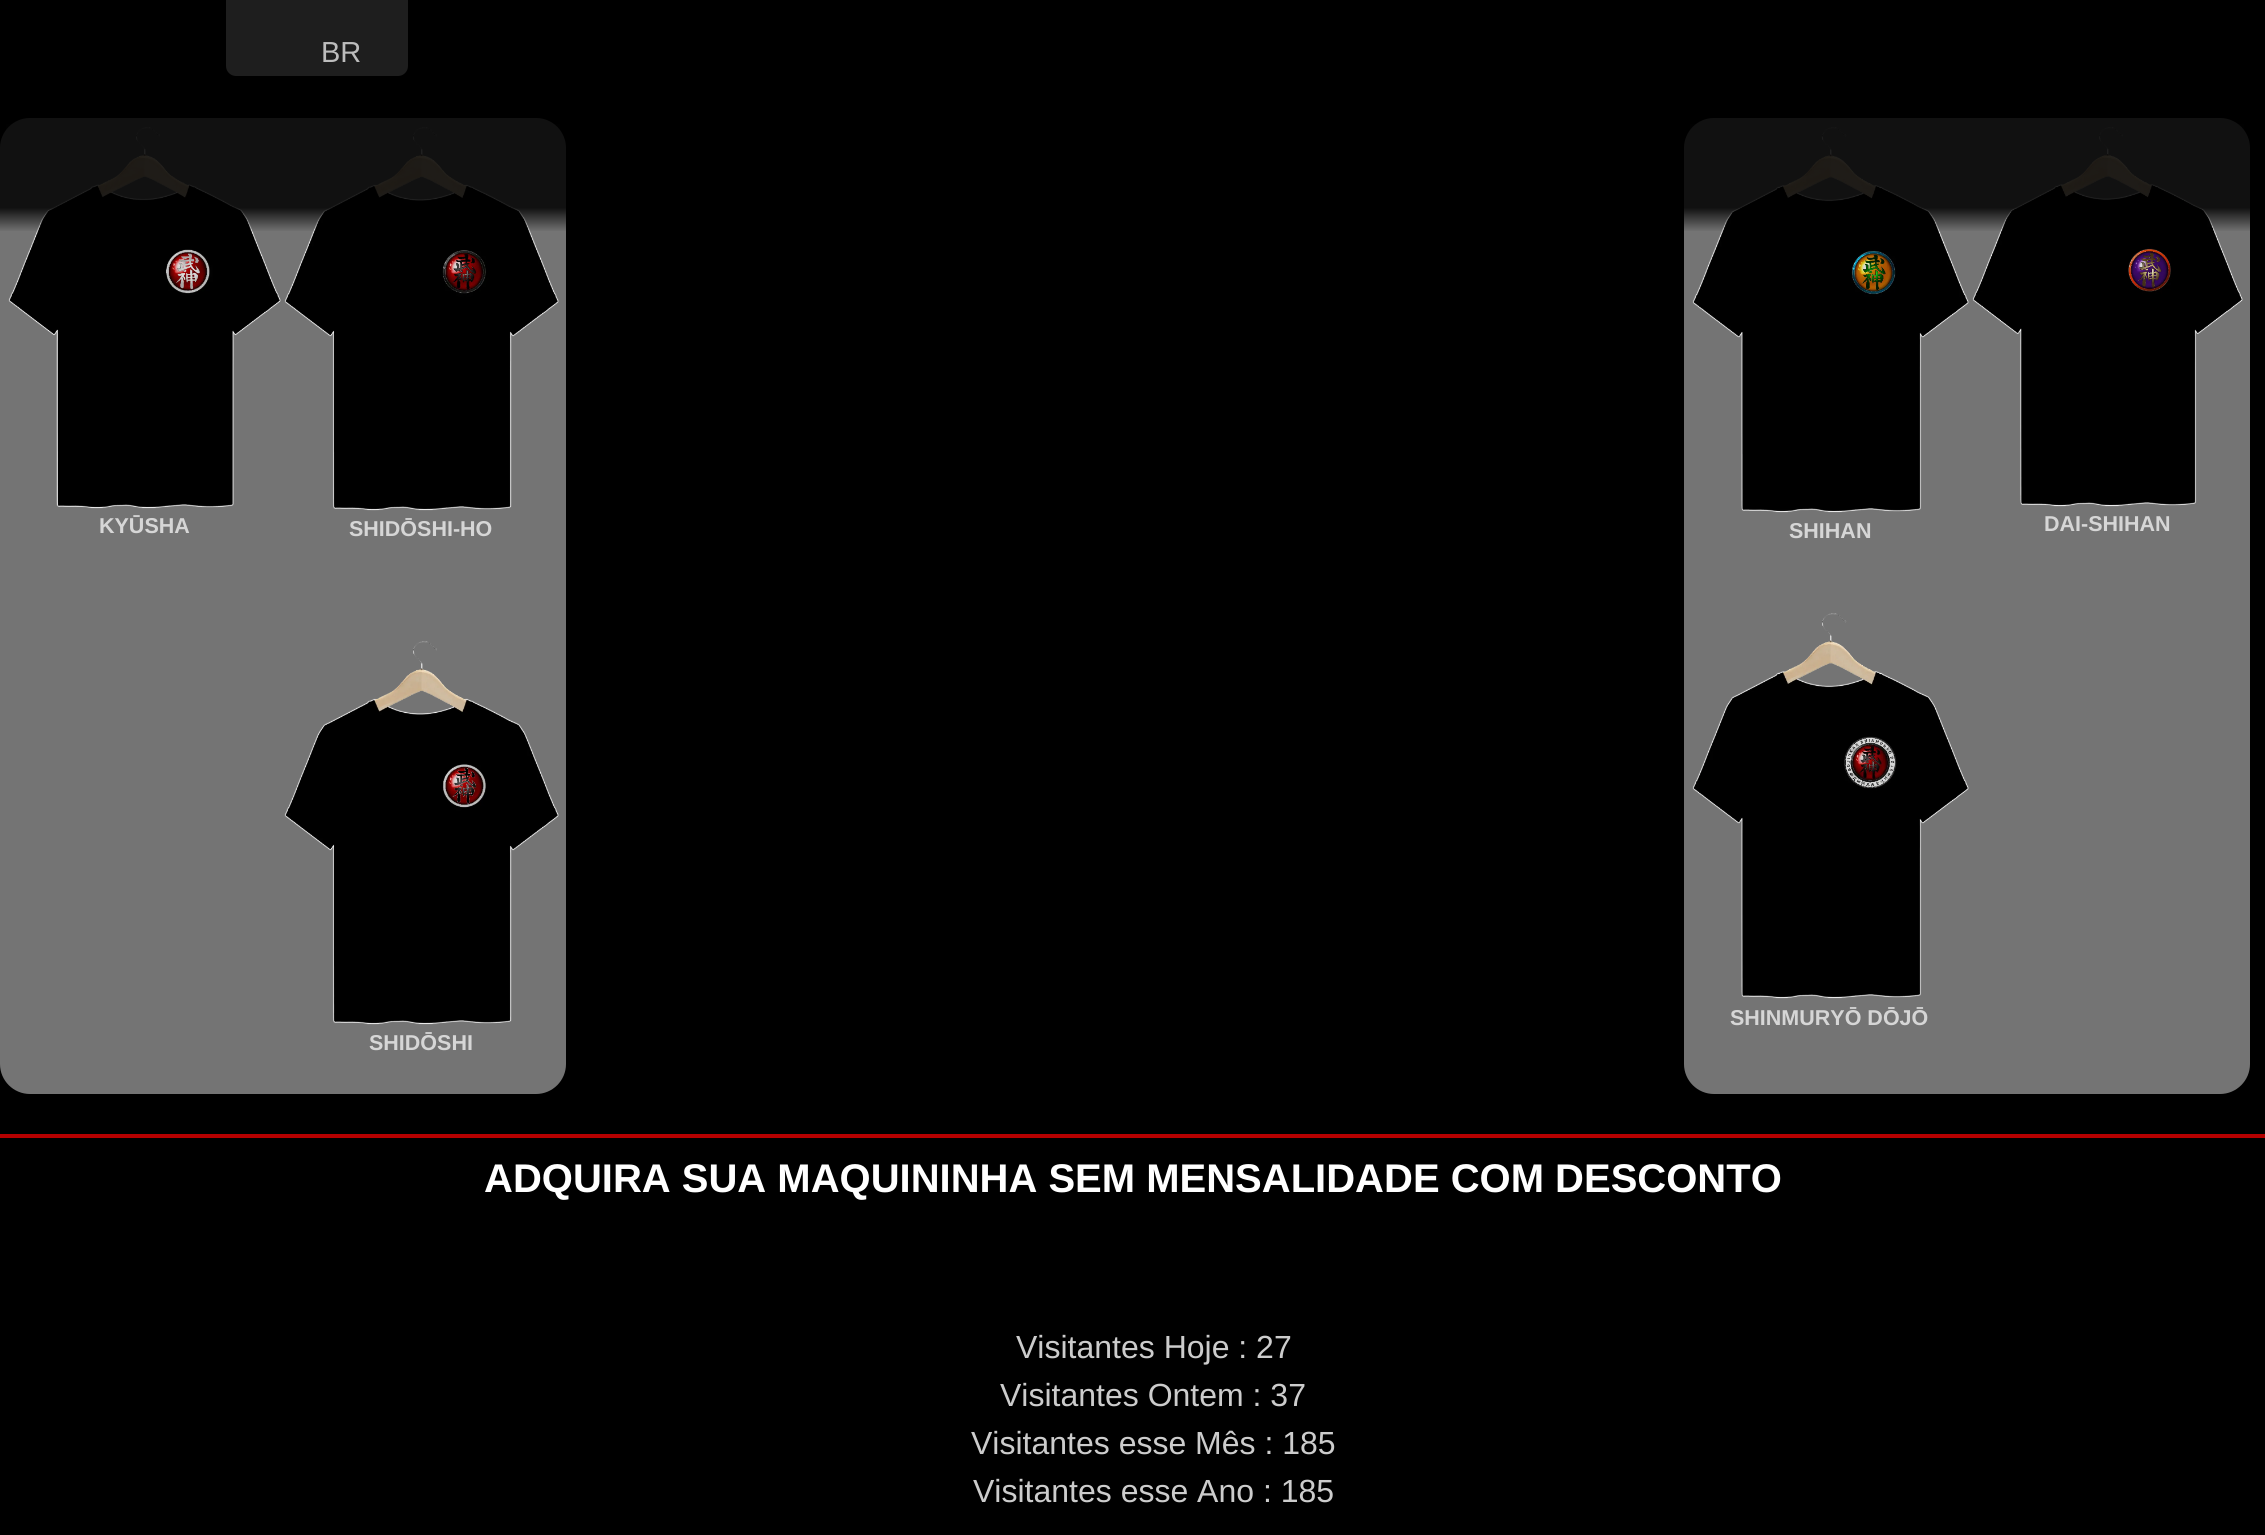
#include <cairo/cairo.h>
#include <math.h>
#include <stddef.h>

static cairo_t *cr;

static void use_color(int r, int g, int b) {
  cairo_set_source_rgb(cr, r / 255.0, g / 255.0, b / 255.0);
}

static void text(double x, double y, const char *s, const char *family, double size, int italic, int bold, int r, int g, int b) {
  cairo_select_font_face(cr, family, italic ? CAIRO_FONT_SLANT_ITALIC : CAIRO_FONT_SLANT_NORMAL,
    bold ? CAIRO_FONT_WEIGHT_BOLD : CAIRO_FONT_WEIGHT_NORMAL);
  cairo_set_font_size(cr, size);
  use_color(r, g, b);
  cairo_move_to(cr, x, y);
  cairo_show_text(cr, s);
}

static void box(double x, double y, double w, double h, int r, int g, int b) {
  use_color(r, g, b);
  cairo_rectangle(cr, x, y, w, h);
  cairo_fill(cr);
}

static void round_rect(double x, double y, double w, double h, double r) {
  cairo_new_sub_path(cr);
  cairo_arc(cr, x + w - r, y + h - r, r, 0, M_PI / 2);
  cairo_arc(cr, x + r, y + h - r, r, M_PI / 2, M_PI);
  cairo_arc(cr, x + r, y + r, r, M_PI, 1.5 * M_PI);
  cairo_arc(cr, x + w - r, y + r, r, 1.5 * M_PI, 2 * M_PI);
  cairo_close_path(cr);
}

static void picture(const char *path, double x, double y, double w, double h) {
  cairo_surface_t *image = cairo_image_surface_create_from_png(path);
  cairo_save(cr);
  cairo_set_source_surface(cr, image, x, y);
  cairo_rectangle(cr, x, y, w, h);
  cairo_fill(cr);
  cairo_restore(cr);
  cairo_surface_destroy(image);
}

static void draw(void) {
  cairo_pattern_t *gradient;
  use_color(0, 0, 0);
  cairo_paint(cr);
  use_color(30, 30, 30);
  cairo_new_path(cr);
  cairo_move_to(cr, 226, 0);
  cairo_line_to(cr, 408, 0);
  cairo_line_to(cr, 408, 66);
  cairo_curve_to(cr, 408, 71.5, 403.5, 76, 398, 76);
  cairo_line_to(cr, 236, 76);
  cairo_curve_to(cr, 230.5, 76, 226, 71.5, 226, 66);
  cairo_close_path(cr);
  cairo_fill(cr);
  use_color(116, 116, 116);
  round_rect(0, 118, 566, 976, 30);
  cairo_fill(cr);
  cairo_set_source_rgba(cr, 0.502, 0.502, 0.502, 0.07);
  cairo_rectangle(cr, 6, 124, 6, 6);
  cairo_fill(cr);
  picture("img_01.png", 8, 127, 273, 382);
  cairo_rectangle(cr, 554, 124, 6, 6);
  cairo_fill(cr);
  picture("img_02.png", 284, 127, 275, 384);
  use_color(116, 116, 116);
  round_rect(1684, 118, 566, 976, 30);
  cairo_fill(cr);
  cairo_set_source_rgba(cr, 0.502, 0.502, 0.502, 0.07);
  cairo_rectangle(cr, 1690, 124, 6, 6);
  cairo_fill(cr);
  picture("img_04.png", 1692, 127, 277, 386);
  cairo_rectangle(cr, 2238, 124, 6, 6);
  cairo_fill(cr);
  picture("img_05.png", 1972, 127, 271, 380);
  cairo_set_source_rgba(cr, 0, 0, 0, 0.85);
  cairo_rectangle(cr, 0, 118, 2250, 80);
  cairo_fill(cr);
  gradient = cairo_pattern_create_linear(1133, 198, 1133, 232);
  cairo_pattern_add_color_stop_rgba(gradient, 0.29, 0, 0, 0, 0.85);
  cairo_pattern_add_color_stop_rgba(gradient, 1, 0, 0, 0, 0);
  cairo_set_source(cr, gradient);
  cairo_pattern_destroy(gradient);
  cairo_rectangle(cr, 0, 198, 2250, 33);
  cairo_fill(cr);
  picture("img_03.png", 284, 641, 275, 384);
  picture("img_06.png", 1692, 613, 277, 386);
  box(0, 1134, 2265, 4, 180, 0, 0);
  text(321, 62, "BR", "Liberation Sans", 29, 0, 0, 189, 189, 189);
  text(99, 533, "KYŪSHA", "Liberation Sans", 21.5, 0, 1, 214, 214, 214);
  text(349, 536, "SHIDŌSHI-HO", "Liberation Sans", 21.5, 0, 1, 214, 214, 214);
  text(369, 1050, "SHIDŌSHI", "Liberation Sans", 21.5, 0, 1, 214, 214, 214);
  text(1789, 538, "SHIHAN", "Liberation Sans", 21.5, 0, 1, 214, 214, 214);
  text(2044, 531, "DAI-SHIHAN", "Liberation Sans", 21.5, 0, 1, 214, 214, 214);
  text(1730, 1025, "SHINMURYŌ DŌJŌ", "Liberation Sans", 21.5, 0, 1, 214, 214, 214);
  text(484, 1192, "ADQUIRA SUA MAQUININHA SEM MENSALIDADE COM DESCONTO", "Liberation Sans", 40, 0, 1, 255, 255, 255);
  text(1016, 1358, "Visitantes Hoje : 27", "Liberation Sans", 32, 0, 0, 204, 204, 204);
  text(1000, 1406, "Visitantes Ontem : 37", "Liberation Sans", 32, 0, 0, 204, 204, 204);
  text(971, 1454, "Visitantes esse Mês : 185", "Liberation Sans", 32, 0, 0, 204, 204, 204);
  text(973, 1502, "Visitantes esse Ano : 185", "Liberation Sans", 32, 0, 0, 204, 204, 204);
}

int main(void) {
  cairo_surface_t *surface = cairo_image_surface_create(CAIRO_FORMAT_RGB24, 2265, 1535);
  cr = cairo_create(surface);
  cairo_font_options_t *options = cairo_font_options_create();
  cairo_font_options_set_hint_metrics(options, CAIRO_HINT_METRICS_OFF);
  cairo_font_options_set_hint_style(options, CAIRO_HINT_STYLE_NONE);
  cairo_set_font_options(cr, options);
  cairo_set_miter_limit(cr, 4);
  draw();
  cairo_surface_write_to_png(surface, "out.png");
  cairo_font_options_destroy(options);
  cairo_destroy(cr);
  cairo_surface_destroy(surface);
  return 0;
}
